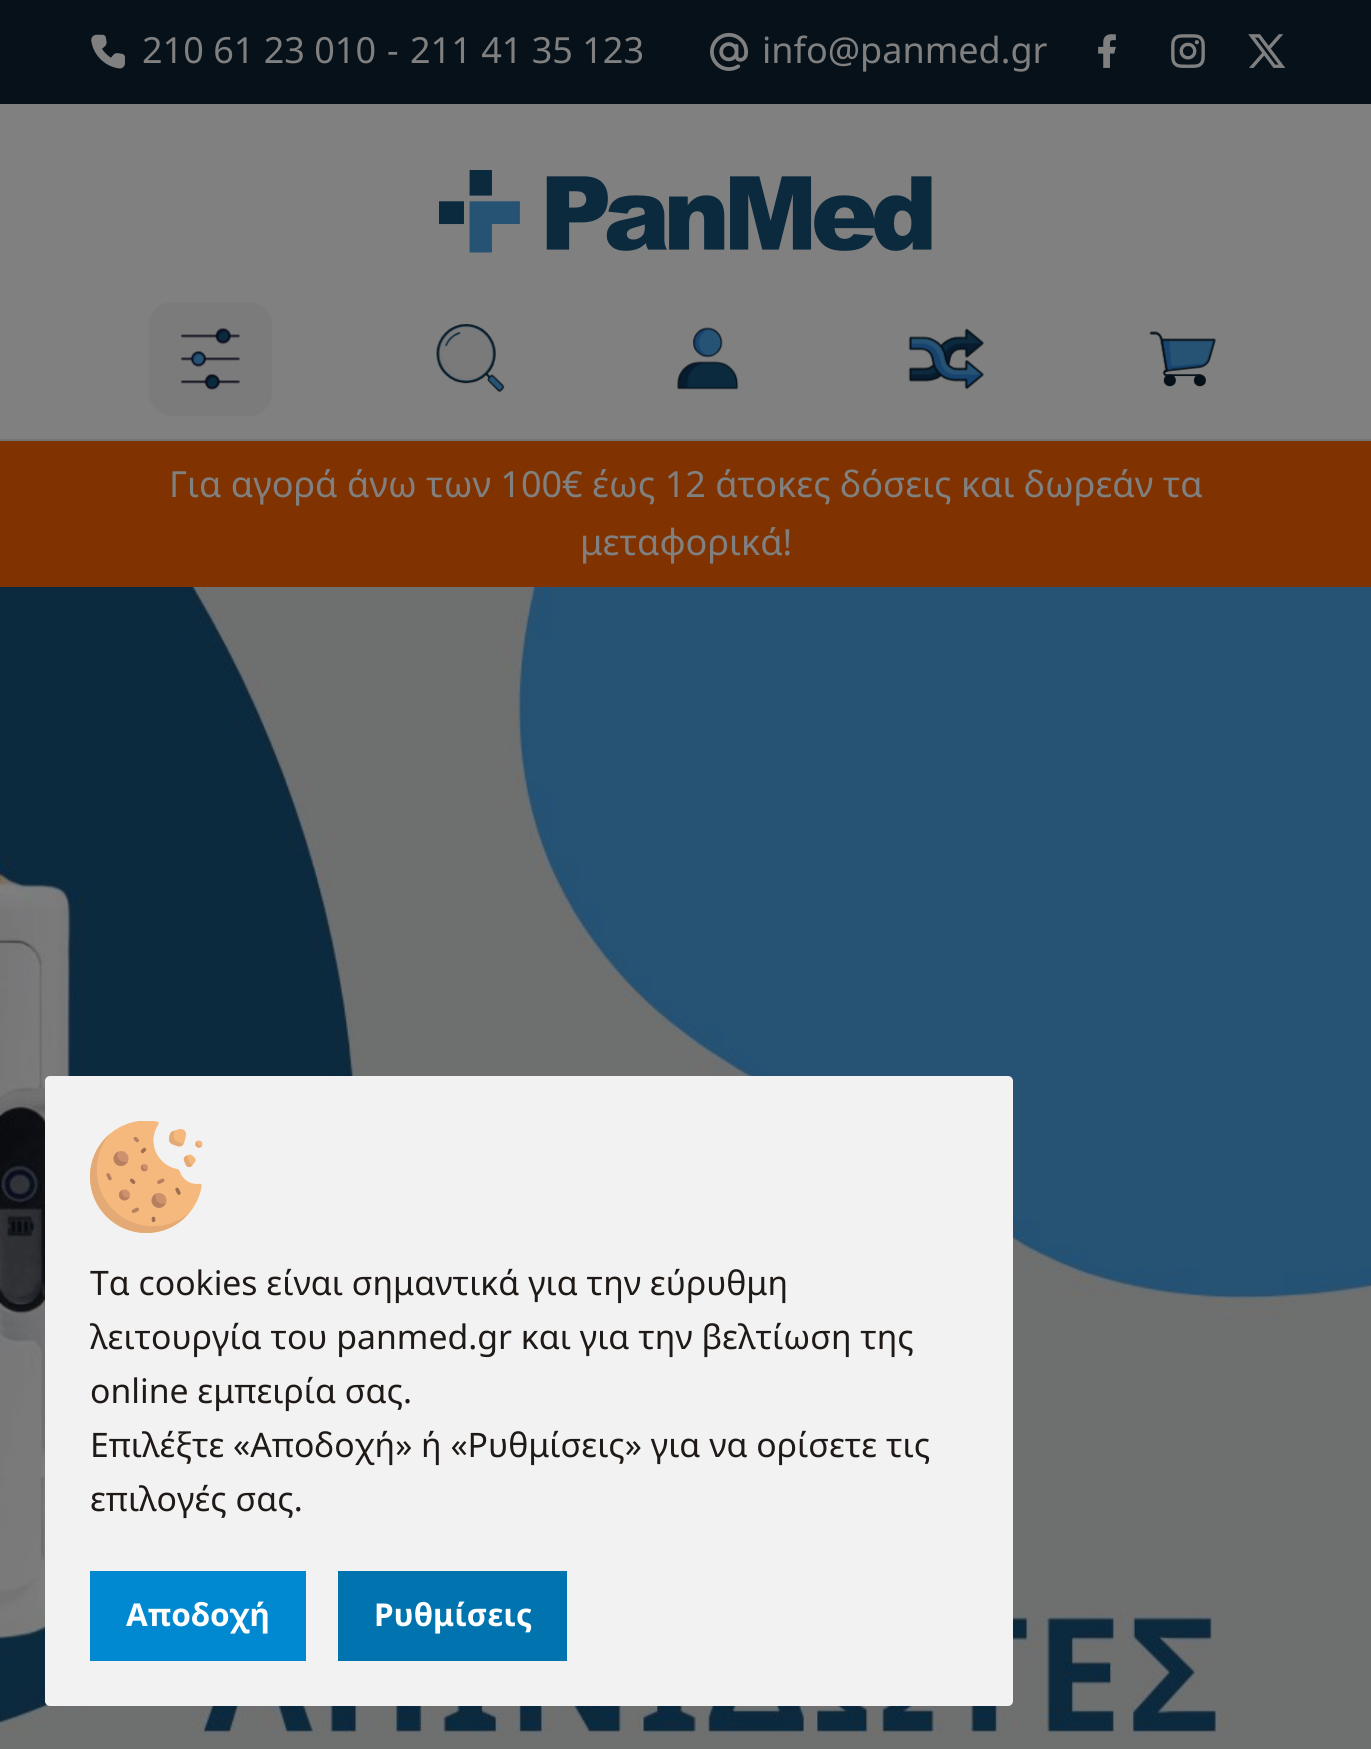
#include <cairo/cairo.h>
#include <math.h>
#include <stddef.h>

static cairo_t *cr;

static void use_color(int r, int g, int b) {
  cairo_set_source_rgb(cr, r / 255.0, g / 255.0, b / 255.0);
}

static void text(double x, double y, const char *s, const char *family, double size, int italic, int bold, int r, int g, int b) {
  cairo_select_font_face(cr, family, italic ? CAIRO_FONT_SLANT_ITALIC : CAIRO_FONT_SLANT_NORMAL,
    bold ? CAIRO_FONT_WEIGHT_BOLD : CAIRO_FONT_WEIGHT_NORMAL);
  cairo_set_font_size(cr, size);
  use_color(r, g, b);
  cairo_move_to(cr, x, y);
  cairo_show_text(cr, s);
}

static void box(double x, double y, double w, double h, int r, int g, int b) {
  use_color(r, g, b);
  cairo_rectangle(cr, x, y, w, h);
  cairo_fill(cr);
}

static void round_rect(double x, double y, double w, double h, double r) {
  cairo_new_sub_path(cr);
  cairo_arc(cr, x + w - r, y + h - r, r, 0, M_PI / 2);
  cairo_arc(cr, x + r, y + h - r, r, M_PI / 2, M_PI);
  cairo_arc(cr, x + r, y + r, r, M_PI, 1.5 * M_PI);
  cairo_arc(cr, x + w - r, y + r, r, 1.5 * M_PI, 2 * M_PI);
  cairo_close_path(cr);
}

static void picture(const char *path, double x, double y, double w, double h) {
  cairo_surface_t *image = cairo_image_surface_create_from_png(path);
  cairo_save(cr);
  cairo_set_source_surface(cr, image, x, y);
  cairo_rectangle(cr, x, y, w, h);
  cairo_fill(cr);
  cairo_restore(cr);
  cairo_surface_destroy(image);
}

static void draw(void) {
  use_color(128, 128, 128);
  cairo_paint(cr);
  box(0, 439, 1371, 2, 117, 117, 117);
  box(0, 0, 1371, 104, 6, 17, 25);
  picture("img_01.png", 91, 34, 34, 35);
  picture("img_02.png", 710, 32, 38, 39);
  picture("img_03.png", 1098, 34, 18, 34);
  picture("img_04.png", 1171, 34, 34, 34);
  picture("img_05.png", 1248, 34, 38, 34);
  picture("img_06.png", 439, 170, 493, 83);
  use_color(123, 123, 123);
  round_rect(149, 302, 123, 114, 23);
  cairo_fill(cr);
  picture("img_07.png", 180, 328, 61, 62);
  picture("img_08.png", 436, 324, 69, 68);
  picture("img_09.png", 677, 327, 62, 63);
  picture("img_10.png", 908, 328, 76, 62);
  picture("img_11.png", 1149, 331, 67, 56);
  box(0, 441, 1371, 146, 128, 51, 0);
  picture("img_12.png", 0, 587, 1371, 1162);
  use_color(242, 242, 242);
  round_rect(45, 1076, 968, 630, 5);
  cairo_fill(cr);
  picture("img_13.png", 90, 1121, 113, 112);
  box(90, 1571, 216, 90, 0, 137, 208);
  box(338, 1571, 229, 90, 1, 115, 175);
  text(142, 63, "210 61 23 010", "Noto Sans", 36, 0, 0, 128, 128, 128);
  text(387, 63, "-", "Noto Sans", 36, 0, 0, 128, 128, 128);
  text(410, 63, "211 41 35 123", "Noto Sans", 36, 0, 0, 128, 128, 128);
  text(762, 63, "info@panmed.gr", "Noto Sans", 36, 0, 0, 128, 128, 128);
  text(169, 497, "Για αγορά άνω των 100€ έως 12 άτοκες δόσεις και δωρεάν τα", "Noto Sans", 36, 0, 0, 128, 128, 128);
  text(580, 555, "μεταφορικά!", "Noto Sans", 36, 0, 0, 128, 128, 128);
  text(90, 1295, "Τα cookies είναι σημαντικά για την εύρυθμη", "Noto Sans", 33.75, 0, 0, 31, 26, 23);
  text(90, 1349, "λειτουργία του panmed.gr και για την βελτίωση της", "Noto Sans", 33.75, 0, 0, 31, 26, 23);
  text(90, 1403, "online εμπειρία σας.", "Noto Sans", 33.75, 0, 0, 31, 26, 23);
  text(90, 1457, "Επιλέξτε «Αποδοχή» ή «Ρυθμίσεις» για να ορίσετε τις", "Noto Sans", 33.75, 0, 0, 31, 26, 23);
  text(90, 1511, "επιλογές σας.", "Noto Sans", 33.75, 0, 0, 31, 26, 23);
  text(126, 1626, "Αποδοχή", "Noto Sans", 31.5, 0, 1, 255, 255, 255);
  text(374, 1626, "Ρυθμίσεις", "Noto Sans", 31.5, 0, 1, 255, 255, 255);
}

int main(void) {
  cairo_surface_t *surface = cairo_image_surface_create(CAIRO_FORMAT_RGB24, 1371, 1749);
  cr = cairo_create(surface);
  cairo_font_options_t *options = cairo_font_options_create();
  cairo_font_options_set_hint_metrics(options, CAIRO_HINT_METRICS_OFF);
  cairo_font_options_set_hint_style(options, CAIRO_HINT_STYLE_NONE);
  cairo_set_font_options(cr, options);
  cairo_set_miter_limit(cr, 4);
  draw();
  cairo_surface_write_to_png(surface, "out.png");
  cairo_font_options_destroy(options);
  cairo_destroy(cr);
  cairo_surface_destroy(surface);
  return 0;
}
